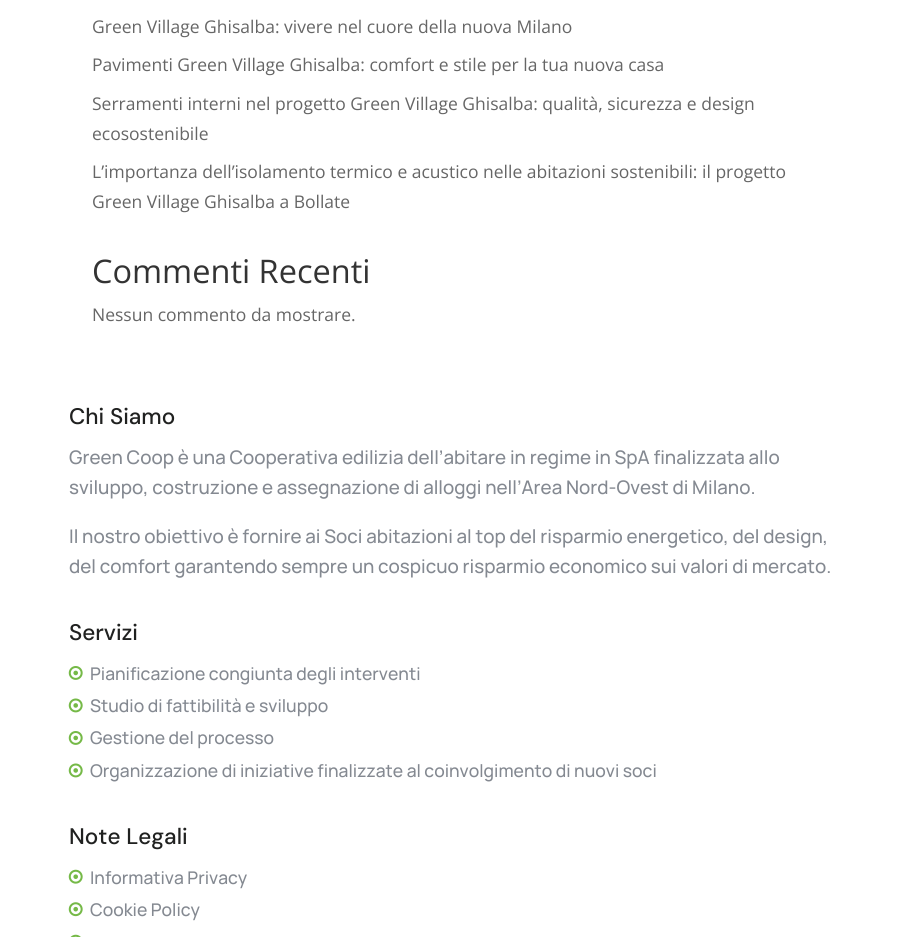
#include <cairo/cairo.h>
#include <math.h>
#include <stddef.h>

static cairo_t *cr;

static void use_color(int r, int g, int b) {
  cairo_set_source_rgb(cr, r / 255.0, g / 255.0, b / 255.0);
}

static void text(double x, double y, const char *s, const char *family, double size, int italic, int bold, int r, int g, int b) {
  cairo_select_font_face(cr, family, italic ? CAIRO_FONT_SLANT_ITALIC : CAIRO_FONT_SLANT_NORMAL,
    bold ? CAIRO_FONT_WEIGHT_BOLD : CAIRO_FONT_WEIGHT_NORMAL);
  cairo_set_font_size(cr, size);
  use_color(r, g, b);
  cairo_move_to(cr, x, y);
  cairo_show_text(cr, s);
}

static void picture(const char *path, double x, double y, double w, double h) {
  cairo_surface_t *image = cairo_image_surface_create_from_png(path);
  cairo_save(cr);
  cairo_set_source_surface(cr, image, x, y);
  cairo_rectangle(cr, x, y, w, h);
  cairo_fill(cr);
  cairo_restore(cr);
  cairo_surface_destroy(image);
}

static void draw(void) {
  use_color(255, 255, 255);
  cairo_paint(cr);
  picture("img_01.png", 68, 666, 15, 14);
  picture("img_02.png", 68, 698, 15, 15);
  picture("img_01.png", 68, 731, 15, 14);
  picture("img_02.png", 68, 763, 15, 15);
  picture("img_03.png", 68, 869, 15, 15);
  picture("img_04.png", 68, 902, 15, 15);
  picture("img_05.png", 70, 934, 11, 3);
  text(92, 33, "Green Village Ghisalba: vivere nel cuore della nuova Milano", "Open Sans", 17.5, 0, 0, 102, 102, 102);
  text(92, 71, "Pavimenti Green Village Ghisalba: comfort e stile per la tua nuova casa", "Open Sans", 17.5, 0, 0, 102, 102, 102);
  text(92, 110, "Serramenti interni nel progetto Green Village Ghisalba: qualità, sicurezza e design", "Open Sans", 17.5, 0, 0, 102, 102, 102);
  text(92, 140, "ecosostenibile", "Open Sans", 17.5, 0, 0, 102, 102, 102);
  text(92, 178, "L’importanza dell’isolamento termico e acustico nelle abitazioni sostenibili: il progetto", "Open Sans", 17.5, 0, 0, 102, 102, 102);
  text(92, 208, "Green Village Ghisalba a Bollate", "Open Sans", 17.5, 0, 0, 102, 102, 102);
  text(92, 283, "Commenti Recenti", "Open Sans", 32.5, 0, 0, 51, 51, 51);
  text(92, 321, "Nessun commento da mostrare.", "Open Sans", 17.5, 0, 0, 102, 102, 102);
  text(69, 424, "Chi Siamo", "DM Sans Medium", 22.5, 0, 0, 32, 33, 32);
  text(69, 464, "Green Coop è una Cooperativa edilizia dell’abitare in regime in SpA finalizzata allo", "Manrope Medium", 18.75, 0, 0, 132, 137, 145);
  text(69, 494, "sviluppo, costruzione e assegnazione di alloggi nell’Area Nord-Ovest di Milano.", "Manrope Medium", 18.75, 0, 0, 132, 137, 145);
  text(69, 543, "Il nostro obiettivo è fornire ai Soci abitazioni al top del risparmio energetico, del design,", "Manrope Medium", 18.75, 0, 0, 132, 137, 145);
  text(69, 573, "del comfort garantendo sempre un cospicuo risparmio economico sui valori di mercato.", "Manrope Medium", 18.75, 0, 0, 132, 137, 145);
  text(69, 640, "Servizi", "DM Sans Medium", 22.5, 0, 0, 32, 33, 32);
  text(90, 680, "Pianificazione congiunta degli interventi", "Manrope Medium", 17.5, 0, 0, 132, 137, 145);
  text(90, 712, "Studio di fattibilità e sviluppo", "Manrope Medium", 17.5, 0, 0, 132, 137, 145);
  text(90, 744, "Gestione del processo", "Manrope Medium", 17.5, 0, 0, 132, 137, 145);
  text(90, 777, "Organizzazione di iniziative finalizzate al coinvolgimento di nuovi soci", "Manrope Medium", 17.5, 0, 0, 132, 137, 145);
  text(69, 844, "Note Legali", "DM Sans Medium", 22.5, 0, 0, 32, 33, 32);
  text(90, 884, "Informativa Privacy", "Manrope Medium", 17.5, 0, 0, 132, 137, 145);
  text(90, 916, "Cookie Policy", "Manrope Medium", 17.5, 0, 0, 132, 137, 145);
}

int main(void) {
  cairo_surface_t *surface = cairo_image_surface_create(CAIRO_FORMAT_RGB24, 920, 937);
  cr = cairo_create(surface);
  cairo_font_options_t *options = cairo_font_options_create();
  cairo_font_options_set_hint_metrics(options, CAIRO_HINT_METRICS_OFF);
  cairo_font_options_set_hint_style(options, CAIRO_HINT_STYLE_NONE);
  cairo_set_font_options(cr, options);
  cairo_set_miter_limit(cr, 4);
  draw();
  cairo_surface_write_to_png(surface, "out.png");
  cairo_font_options_destroy(options);
  cairo_destroy(cr);
  cairo_surface_destroy(surface);
  return 0;
}
